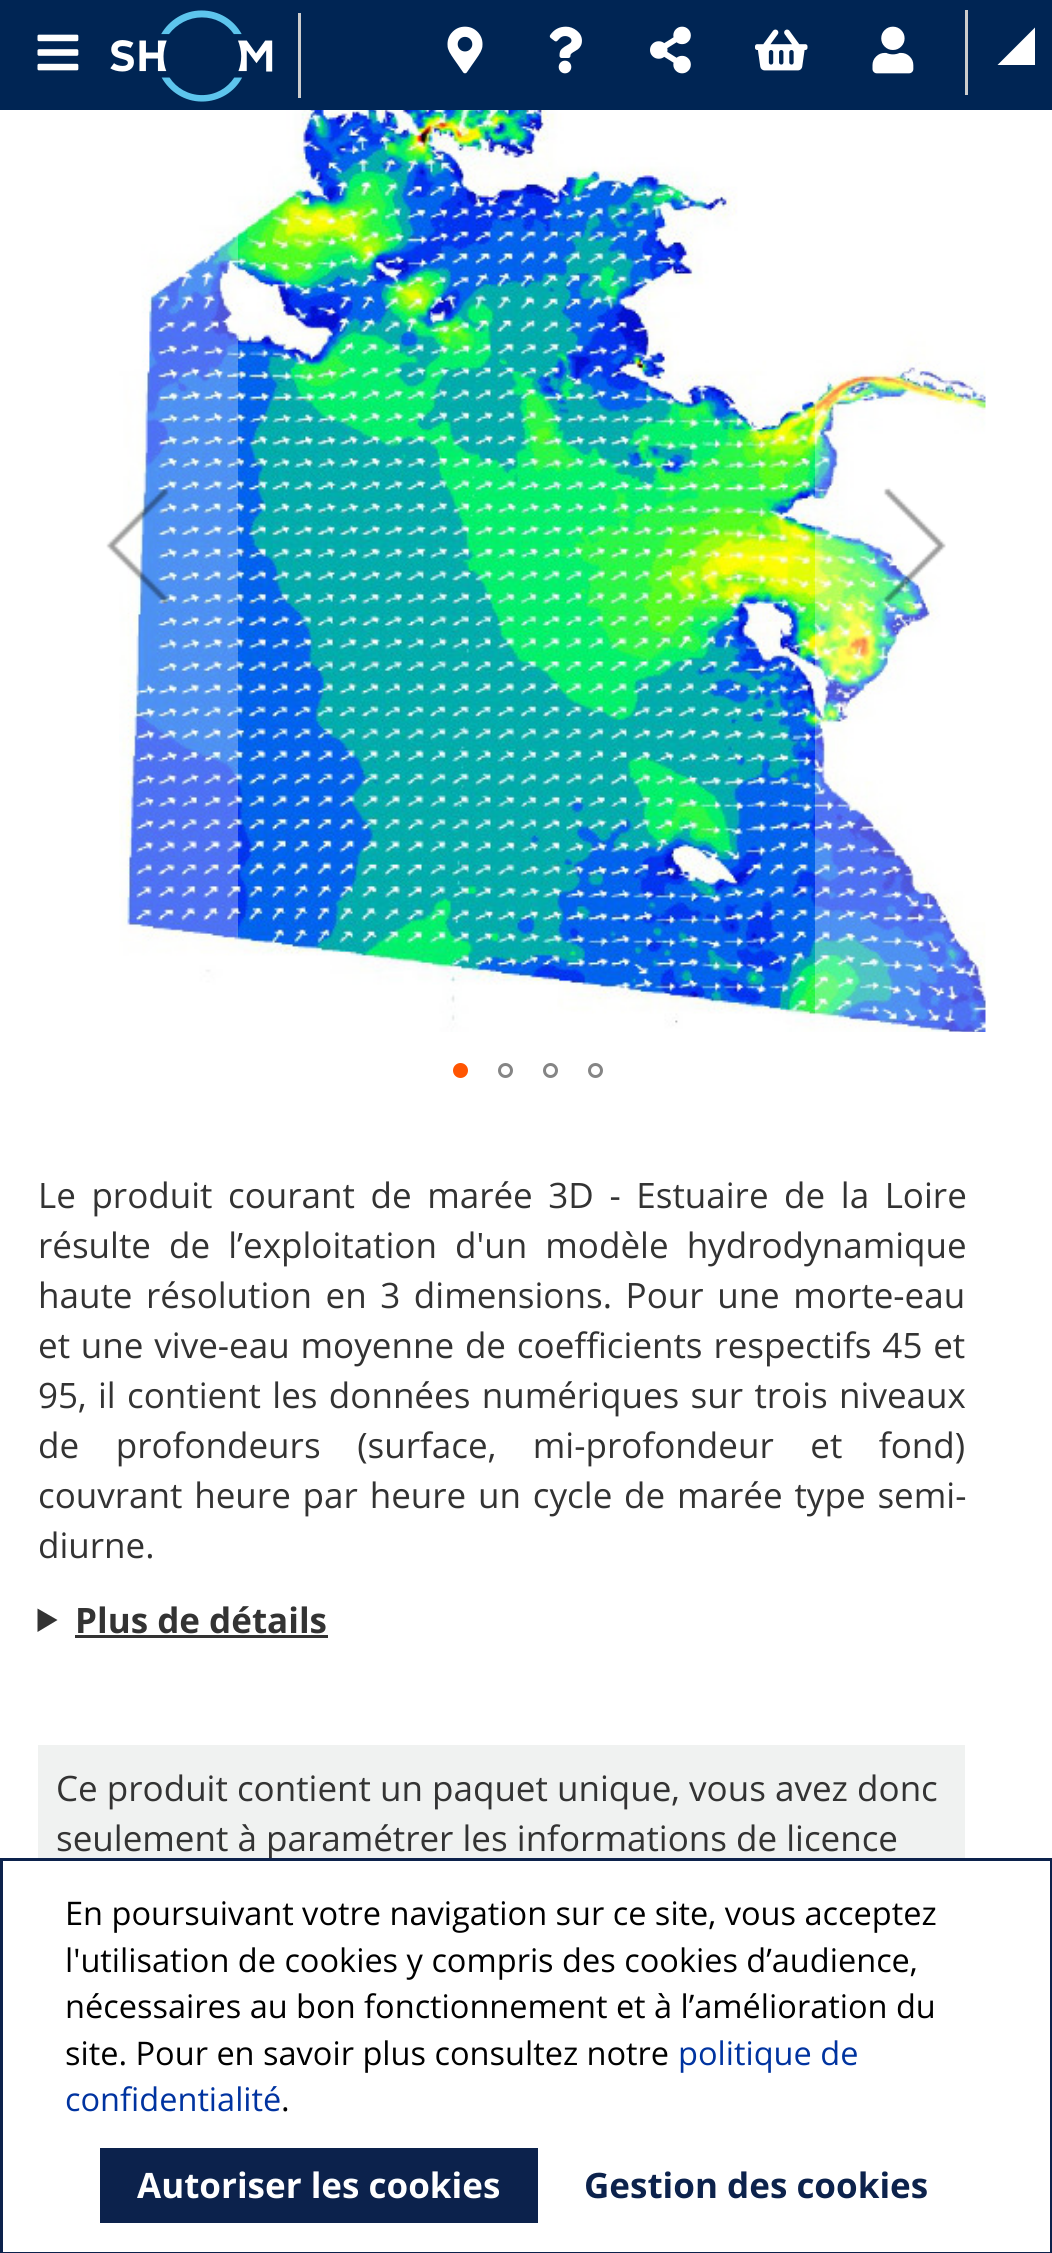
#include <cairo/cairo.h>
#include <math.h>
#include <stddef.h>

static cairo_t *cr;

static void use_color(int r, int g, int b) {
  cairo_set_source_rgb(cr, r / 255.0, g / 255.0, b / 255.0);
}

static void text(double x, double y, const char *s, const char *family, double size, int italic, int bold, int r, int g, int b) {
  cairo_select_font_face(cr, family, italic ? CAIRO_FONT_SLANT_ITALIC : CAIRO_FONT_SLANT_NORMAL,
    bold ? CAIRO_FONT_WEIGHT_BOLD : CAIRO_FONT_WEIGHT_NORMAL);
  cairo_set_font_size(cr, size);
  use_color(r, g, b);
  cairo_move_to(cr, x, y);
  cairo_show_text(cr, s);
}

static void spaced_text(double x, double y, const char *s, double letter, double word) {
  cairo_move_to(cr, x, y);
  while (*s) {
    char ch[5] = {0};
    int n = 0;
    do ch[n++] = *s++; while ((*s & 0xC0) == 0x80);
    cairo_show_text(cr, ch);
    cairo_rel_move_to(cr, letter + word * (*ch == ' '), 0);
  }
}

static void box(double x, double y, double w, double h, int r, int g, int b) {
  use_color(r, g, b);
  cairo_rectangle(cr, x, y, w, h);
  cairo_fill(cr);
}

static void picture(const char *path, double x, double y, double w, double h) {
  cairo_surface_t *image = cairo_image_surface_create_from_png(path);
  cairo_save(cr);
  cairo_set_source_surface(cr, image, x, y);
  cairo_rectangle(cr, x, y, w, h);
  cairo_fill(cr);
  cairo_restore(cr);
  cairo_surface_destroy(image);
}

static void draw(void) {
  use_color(255, 255, 255);
  cairo_paint(cr);
  box(0, 0, 1052, 110, 0, 37, 84);
  picture("img_01.png", 37, 34, 42, 37);
  picture("img_02.png", 110, 10, 163, 92);
  box(298, 13, 3, 85, 204, 204, 204);
  picture("img_03.png", 447, 26, 36, 48);
  picture("img_04.png", 549, 26, 33, 48);
  picture("img_05.png", 650, 26, 41, 48);
  picture("img_06.png", 755, 29, 53, 42);
  picture("img_07.png", 872, 26, 42, 48);
  box(965, 10, 3, 85, 204, 204, 204);
  use_color(255, 255, 255);
  cairo_new_path(cr);
  cairo_move_to(cr, 1035, 65);
  cairo_line_to(cr, 997.5, 65);
  cairo_line_to(cr, 1035, 27.5);
  cairo_close_path(cr);
  cairo_fill(cr);
  picture("img_08.png", 119, 110, 867, 922);
  cairo_set_source_rgba(cr, 1, 1, 1, 0.3);
  cairo_rectangle(cr, 120, 230, 118, 742);
  cairo_fill(cr);
  picture("img_09.png", 106, 487, 63, 117);
  cairo_rectangle(cr, 815, 356, 171, 676);
  cairo_fill(cr);
  picture("img_10.png", 883, 487, 63, 116);
  use_color(255, 85, 1);
  cairo_arc(cr, 460.5, 1070.5, 6, 0, 2 * M_PI);
  cairo_fill_preserve(cr);
  cairo_set_line_width(cr, 3);
  cairo_stroke(cr);
  cairo_arc(cr, 505.5, 1070.5, 6, 0, 2 * M_PI);
  use_color(133, 133, 133);
  cairo_stroke(cr);
  cairo_arc(cr, 550.5, 1070.5, 6, 0, 2 * M_PI);
  cairo_stroke(cr);
  cairo_arc(cr, 595.5, 1070.5, 6, 0, 2 * M_PI);
  cairo_stroke(cr);
  use_color(51, 51, 51);
  cairo_new_path(cr);
  cairo_move_to(cr, 37.5, 1608.5);
  cairo_line_to(cr, 57.5, 1620);
  cairo_line_to(cr, 37.5, 1632);
  cairo_close_path(cr);
  cairo_fill(cr);
  box(75, 1635, 253, 3, 51, 51, 51);
  box(38, 1745, 927, 113, 240, 242, 241);
  cairo_select_font_face(cr, "Open Sans", CAIRO_FONT_SLANT_NORMAL, CAIRO_FONT_WEIGHT_NORMAL);
  cairo_set_font_size(cr, 35);
  use_color(51, 51, 51);
  spaced_text(38, 1208, "Le produit courant de marée 3D - Estuaire de la Loire", 0, 6.5);
  spaced_text(38, 1258, "résulte de l’exploitation d'un modèle hydrodynamique", 0, 9);
  spaced_text(38, 1308, "haute résolution en 3 dimensions. Pour une morte-eau", 0, 4.5);
  spaced_text(38, 1358, "et une vive-eau moyenne de coefficients respectifs 45 et", 0, 1.75);
  spaced_text(38, 1408, "95, il contient les données numériques sur trois niveaux", 0, 2.25);
  spaced_text(38, 1458, "de profondeurs (surface, mi-profondeur et fond)", 0, 27.5);
  spaced_text(38, 1508, "couvrant heure par heure un cycle de marée type semi-", 0, 2.75);
  text(38, 1558, "diurne.", "Open Sans", 35, 0, 0, 51, 51, 51);
  text(75, 1633, "Plus de détails", "Open Sans", 35, 0, 1, 51, 51, 51);
  text(56, 1801, "Ce produit contient un paquet unique, vous avez donc", "Open Sans", 35, 0, 0, 51, 51, 51);
  text(56, 1851, "seulement à paramétrer les informations de licence", "Open Sans", 35, 0, 0, 51, 51, 51);
  cairo_rectangle(cr, 1.5, 1859.5, 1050, 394);
  use_color(12, 34, 76);
  cairo_stroke(cr);
  text(65, 1925, "En poursuivant votre navigation sur ce site, vous acceptez", "Open Sans", 32.5, 0, 0, 0, 0, 0);
  text(65, 1972, "l'utilisation de cookies y compris des cookies d’audience,", "Open Sans", 32.5, 0, 0, 0, 0, 0);
  text(65, 2018, "nécessaires au bon fonctionnement et à l’amélioration du", "Open Sans", 32.5, 0, 0, 0, 0, 0);
  text(65, 2065, "site. Pour en savoir plus consultez notre", "Open Sans", 32.5, 0, 0, 0, 0, 0);
  text(678, 2065, "politique de", "Open Sans", 32.5, 0, 0, 0, 51, 160);
  text(65, 2111, "confidentialité", "Open Sans", 32.5, 0, 0, 0, 51, 160);
  text(281, 2111, ".", "Open Sans", 32.5, 0, 0, 0, 0, 0);
  box(100, 2148, 438, 75, 12, 34, 76);
  text(137, 2198, "Autoriser les cookies", "Open Sans", 35, 0, 1, 255, 255, 255);
  text(584, 2198, "Gestion des cookies", "Open Sans", 35, 0, 1, 12, 34, 76);
}

int main(void) {
  cairo_surface_t *surface = cairo_image_surface_create(CAIRO_FORMAT_RGB24, 1052, 2253);
  cr = cairo_create(surface);
  cairo_font_options_t *options = cairo_font_options_create();
  cairo_font_options_set_hint_metrics(options, CAIRO_HINT_METRICS_OFF);
  cairo_font_options_set_hint_style(options, CAIRO_HINT_STYLE_NONE);
  cairo_set_font_options(cr, options);
  cairo_set_miter_limit(cr, 4);
  draw();
  cairo_surface_write_to_png(surface, "out.png");
  cairo_font_options_destroy(options);
  cairo_destroy(cr);
  cairo_surface_destroy(surface);
  return 0;
}
